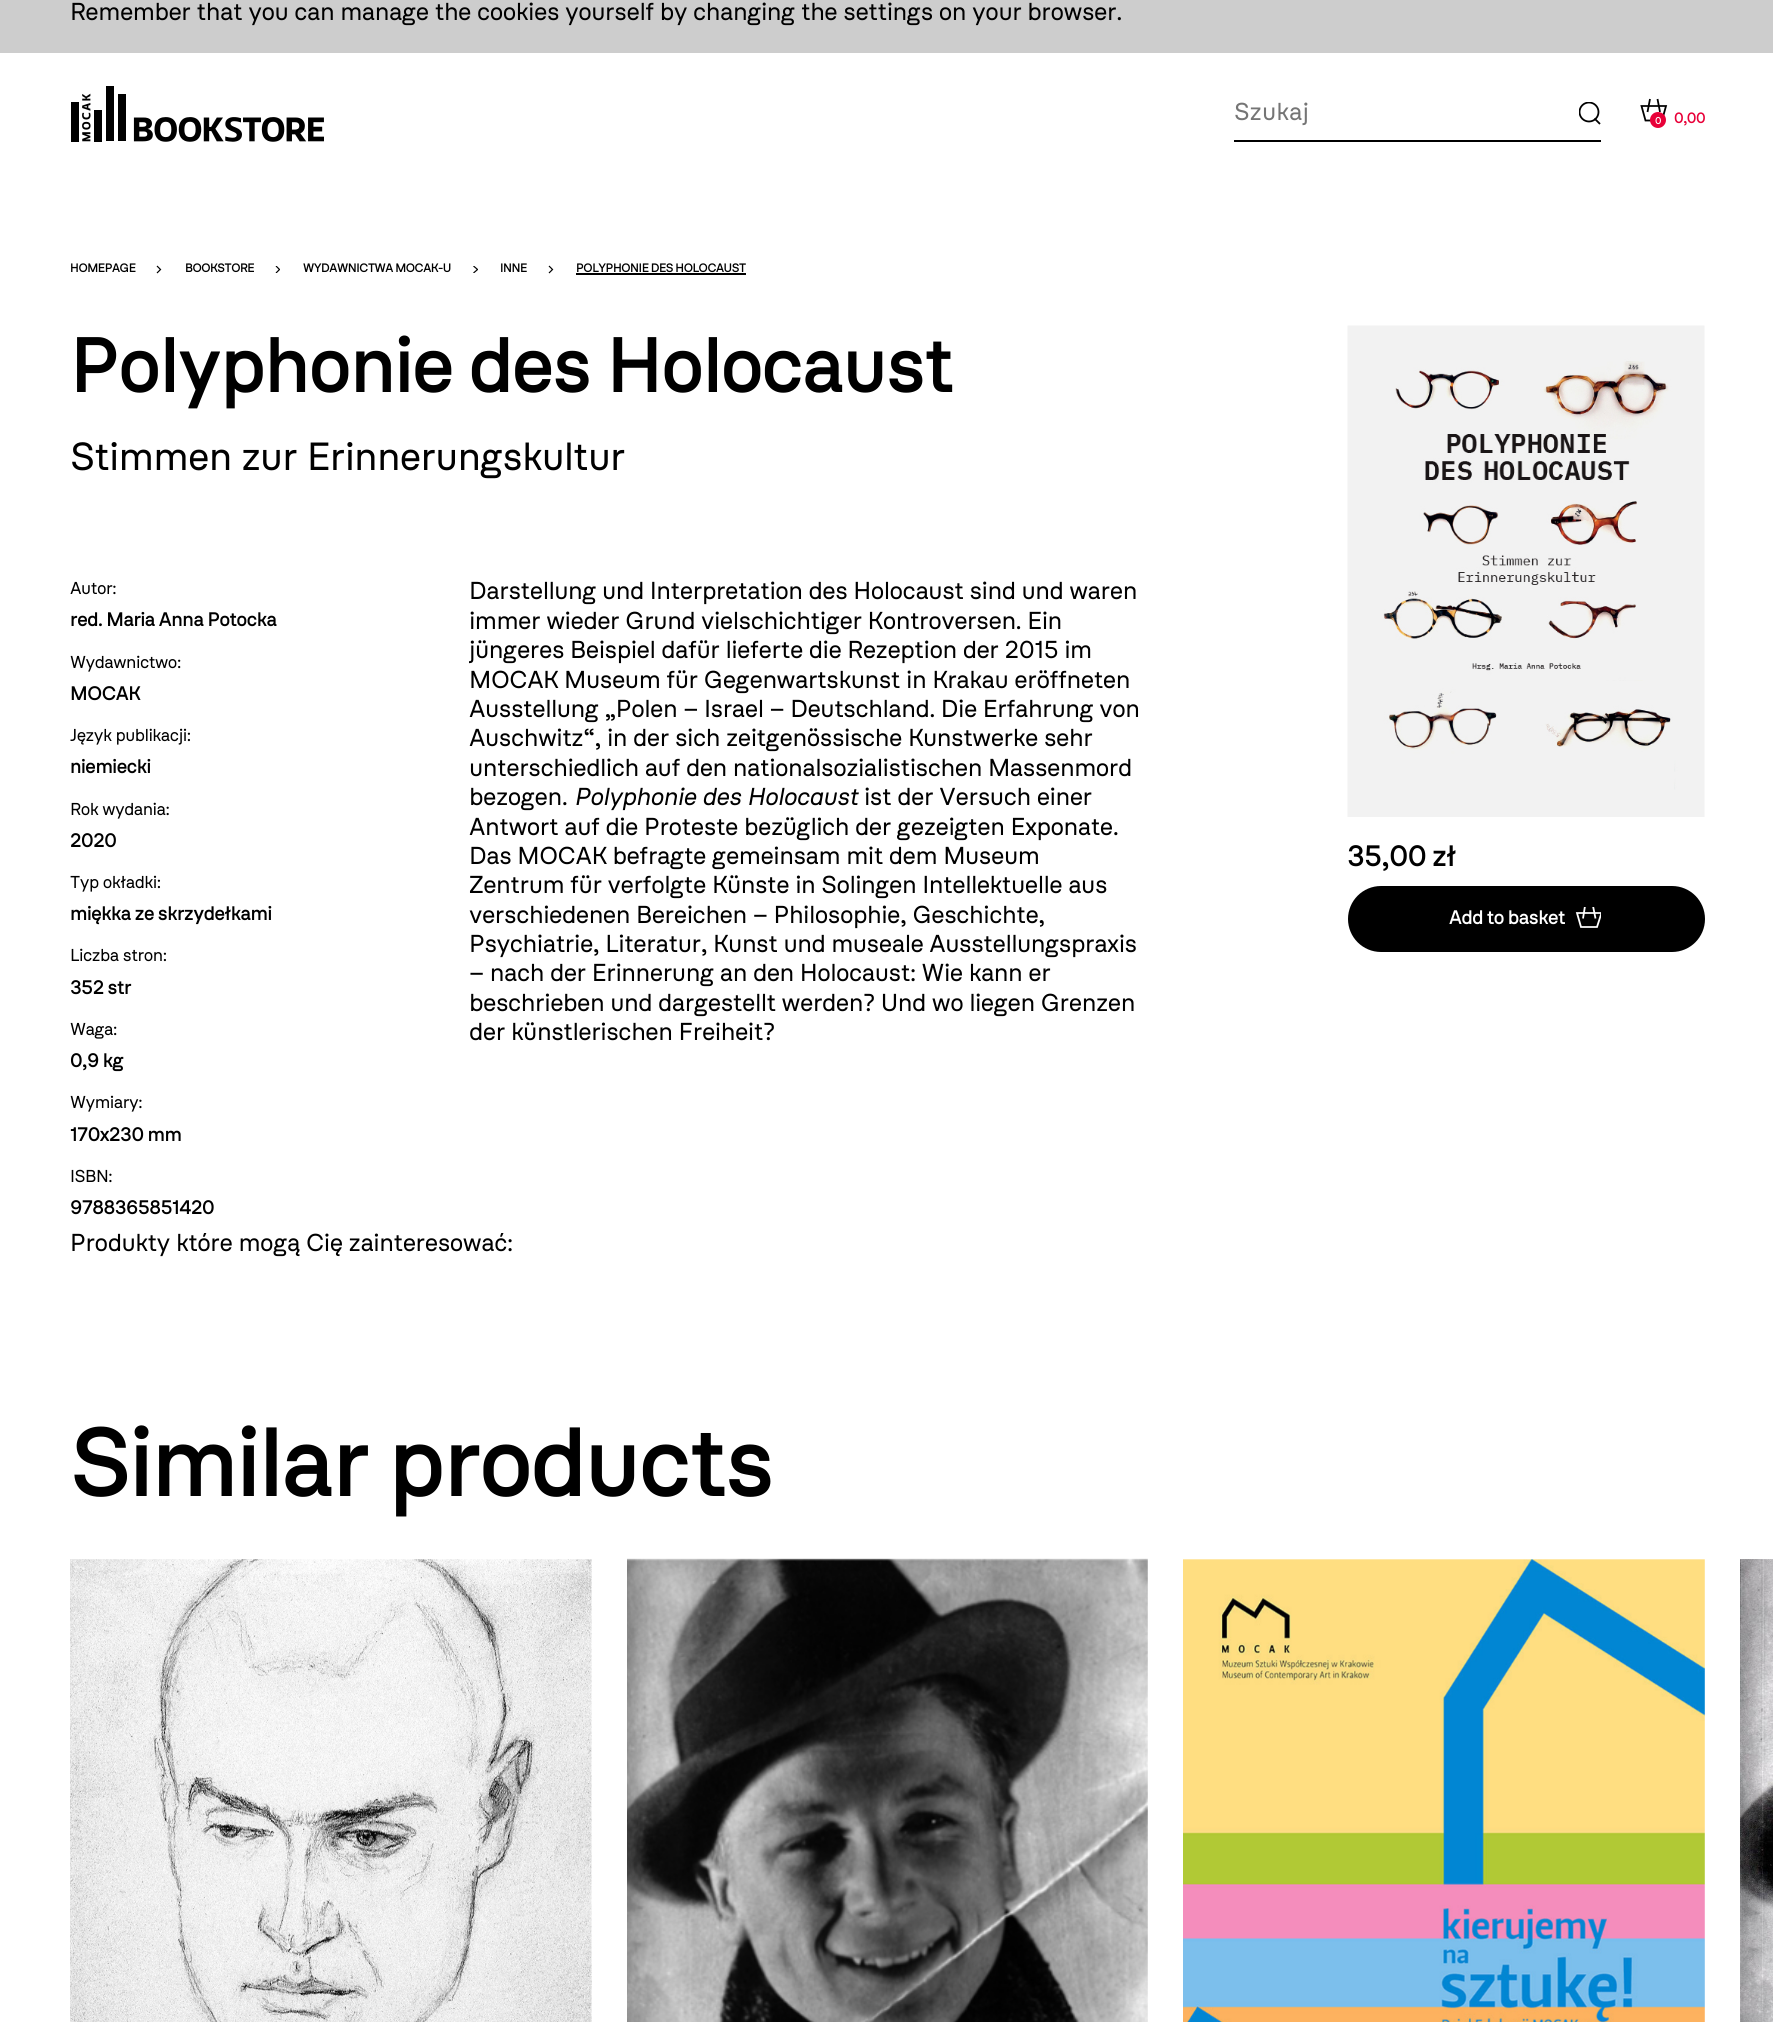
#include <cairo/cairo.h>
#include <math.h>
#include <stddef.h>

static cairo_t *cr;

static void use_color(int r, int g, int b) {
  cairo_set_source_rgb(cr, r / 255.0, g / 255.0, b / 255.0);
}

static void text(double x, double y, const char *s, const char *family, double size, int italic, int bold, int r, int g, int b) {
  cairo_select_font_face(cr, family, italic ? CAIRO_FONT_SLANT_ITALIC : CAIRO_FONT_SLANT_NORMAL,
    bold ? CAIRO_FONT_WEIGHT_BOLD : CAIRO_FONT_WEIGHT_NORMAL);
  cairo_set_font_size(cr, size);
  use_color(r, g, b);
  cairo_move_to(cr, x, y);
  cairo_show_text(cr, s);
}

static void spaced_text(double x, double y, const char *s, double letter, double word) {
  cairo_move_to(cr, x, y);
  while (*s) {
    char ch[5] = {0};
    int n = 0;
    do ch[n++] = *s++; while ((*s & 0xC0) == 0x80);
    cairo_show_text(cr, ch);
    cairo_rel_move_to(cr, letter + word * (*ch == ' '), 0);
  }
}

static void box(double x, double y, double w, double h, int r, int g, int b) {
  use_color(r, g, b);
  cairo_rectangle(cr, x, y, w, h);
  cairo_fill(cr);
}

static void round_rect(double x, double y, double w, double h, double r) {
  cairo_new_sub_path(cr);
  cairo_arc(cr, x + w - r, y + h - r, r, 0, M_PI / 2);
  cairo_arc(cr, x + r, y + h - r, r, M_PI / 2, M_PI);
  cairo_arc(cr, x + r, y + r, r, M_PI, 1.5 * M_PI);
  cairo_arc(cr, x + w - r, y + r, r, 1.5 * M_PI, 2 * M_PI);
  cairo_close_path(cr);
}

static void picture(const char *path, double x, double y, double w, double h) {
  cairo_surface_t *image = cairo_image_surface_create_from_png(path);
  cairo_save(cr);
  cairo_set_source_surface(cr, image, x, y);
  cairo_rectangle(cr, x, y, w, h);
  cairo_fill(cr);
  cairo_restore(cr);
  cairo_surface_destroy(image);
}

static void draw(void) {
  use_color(255, 255, 255);
  cairo_paint(cr);
  box(0, 0, 1773, 53, 205, 205, 205);
  picture("img_01.png", 71, 86, 253, 56);
  cairo_save(cr);
  cairo_rectangle(cr, 1579, 102, 22, 24);
  cairo_clip(cr);
  cairo_arc(cr, 1589, 112, 9.5, 0, 2 * M_PI);
  use_color(0, 0, 0);
  cairo_set_line_width(cr, 1.8);
  cairo_stroke(cr);
  cairo_restore(cr);
  cairo_new_path(cr);
  cairo_move_to(cr, 1594.5, 118.5);
  cairo_line_to(cr, 1600, 124);
  use_color(0, 0, 0);
  cairo_set_line_width(cr, 1.8);
  cairo_stroke(cr);
  box(1234, 140, 367, 2, 0, 0, 0);
  cairo_new_path(cr);
  cairo_move_to(cr, 1645.5, 120.5);
  cairo_line_to(cr, 1641.5, 106);
  cairo_line_to(cr, 1666, 106);
  cairo_line_to(cr, 1662, 120.5);
  cairo_close_path(cr);
  cairo_move_to(cr, 1650, 99);
  cairo_line_to(cr, 1647.5, 112);
  cairo_move_to(cr, 1657.5, 99);
  cairo_line_to(cr, 1660, 112);
  cairo_stroke(cr);
  use_color(232, 0, 56);
  cairo_arc(cr, 1658, 120, 8, 0, 2 * M_PI);
  cairo_fill(cr);
  cairo_new_path(cr);
  cairo_move_to(cr, 157, 266);
  cairo_line_to(cr, 160.5, 269.5);
  cairo_line_to(cr, 157, 273);
  use_color(0, 0, 0);
  cairo_set_line_width(cr, 1.2);
  cairo_stroke(cr);
  cairo_save(cr);
  cairo_rectangle(cr, 275, 266, 5, 7);
  cairo_clip(cr);
  cairo_new_path(cr);
  cairo_move_to(cr, 276, 266);
  cairo_line_to(cr, 279.5, 269.5);
  cairo_line_to(cr, 276, 273);
  cairo_stroke(cr);
  cairo_restore(cr);
  cairo_save(cr);
  cairo_rectangle(cr, 473, 266, 5, 7);
  cairo_clip(cr);
  cairo_new_path(cr);
  cairo_move_to(cr, 473.5, 266);
  cairo_line_to(cr, 477.5, 269.5);
  cairo_line_to(cr, 473.5, 273);
  cairo_stroke(cr);
  cairo_restore(cr);
  cairo_new_path(cr);
  cairo_move_to(cr, 549, 266);
  cairo_line_to(cr, 552.5, 269.5);
  cairo_line_to(cr, 549, 273);
  cairo_stroke(cr);
  box(576, 273, 170, 2, 0, 0, 0);
  picture("img_02.png", 1347, 325, 358, 492);
  round_rect(1348, 886, 357, 66, 33);
  cairo_fill(cr);
  cairo_save(cr);
  cairo_rectangle(cr, 1575, 907, 26, 21);
  cairo_clip(cr);
  cairo_new_path(cr);
  cairo_move_to(cr, 1581, 927);
  cairo_line_to(cr, 1577, 913);
  cairo_line_to(cr, 1601.5, 913);
  cairo_line_to(cr, 1597, 927);
  cairo_close_path(cr);
  cairo_move_to(cr, 1585, 906);
  cairo_line_to(cr, 1583, 918.5);
  cairo_move_to(cr, 1593, 906);
  cairo_line_to(cr, 1595.5, 918.5);
  use_color(255, 255, 255);
  cairo_set_line_width(cr, 1.8);
  cairo_stroke(cr);
  cairo_restore(cr);
  picture("img_03.png", 70, 1559, 522, 463);
  picture("img_04.png", 627, 1558, 521, 464);
  picture("img_05.png", 1183, 1559, 522, 463);
  picture("img_06.png", 1740, 1559, 33, 463);
  cairo_select_font_face(cr, "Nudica", CAIRO_FONT_SLANT_NORMAL, CAIRO_FONT_WEIGHT_NORMAL);
  cairo_set_font_size(cr, 24.5);
  spaced_text(70, 20, "Remember that you can manage the cookies yourself by changing the settings on your browser.", -0.5, 0);
  text(1234, 120, "Szukaj", "Nudica", 24.5, 0, 0, 117, 117, 117);
  cairo_select_font_face(cr, "Nudica Medium", CAIRO_FONT_SLANT_NORMAL, CAIRO_FONT_WEIGHT_NORMAL);
  cairo_set_font_size(cr, 10);
  use_color(255, 255, 255);
  spaced_text(1655, 124, "0", -0.5, 0);
  cairo_set_font_size(cr, 15);
  use_color(232, 0, 56);
  spaced_text(1674, 123, "0,00", -0.5, 0);
  cairo_set_font_size(cr, 12.25);
  use_color(0, 0, 0);
  spaced_text(70, 272, "HOMEPAGE", -0.5, 0);
  spaced_text(185, 272, "BOOKSTORE", -0.5, 0);
  spaced_text(303, 272, "WYDAWNICTWA MOCAK-U", -0.5, 0);
  spaced_text(500, 272, "INNE", -0.5, 0);
  spaced_text(576, 272, "POLYPHONIE DES HOLOCAUST", -0.5, 0);
  cairo_set_font_size(cr, 78.4);
  spaced_text(70, 392, "Polyphonie des Holocaust", -1.6, 0);
  cairo_select_font_face(cr, "Nudica", CAIRO_FONT_SLANT_NORMAL, CAIRO_FONT_WEIGHT_NORMAL);
  cairo_set_font_size(cr, 39.25);
  spaced_text(70, 470, "Stimmen zur Erinnerungskultur", -0.75, 0);
  cairo_set_font_size(cr, 17.25);
  spaced_text(70, 594, "Autor:", -0.5, 0);
  cairo_select_font_face(cr, "Nudica Medium", CAIRO_FONT_SLANT_NORMAL, CAIRO_FONT_WEIGHT_NORMAL);
  cairo_set_font_size(cr, 19.6);
  spaced_text(70, 626, "red. Maria Anna Potocka", -0.5, 0);
  cairo_select_font_face(cr, "Nudica", CAIRO_FONT_SLANT_NORMAL, CAIRO_FONT_WEIGHT_NORMAL);
  cairo_set_font_size(cr, 17.25);
  spaced_text(70, 668, "Wydawnictwo:", -0.5, 0);
  cairo_select_font_face(cr, "Nudica Medium", CAIRO_FONT_SLANT_NORMAL, CAIRO_FONT_WEIGHT_NORMAL);
  cairo_set_font_size(cr, 19.6);
  spaced_text(70, 700, "MOCAK", -0.5, 0);
  cairo_select_font_face(cr, "Nudica", CAIRO_FONT_SLANT_NORMAL, CAIRO_FONT_WEIGHT_NORMAL);
  cairo_set_font_size(cr, 17.25);
  spaced_text(70, 741, "Język publikacji:", -0.5, 0);
  cairo_select_font_face(cr, "Nudica Medium", CAIRO_FONT_SLANT_NORMAL, CAIRO_FONT_WEIGHT_NORMAL);
  cairo_set_font_size(cr, 19.6);
  spaced_text(70, 773, "niemiecki", -0.5, 0);
  cairo_select_font_face(cr, "Nudica", CAIRO_FONT_SLANT_NORMAL, CAIRO_FONT_WEIGHT_NORMAL);
  cairo_set_font_size(cr, 17.25);
  spaced_text(70, 815, "Rok wydania:", -0.5, 0);
  cairo_select_font_face(cr, "Nudica Medium", CAIRO_FONT_SLANT_NORMAL, CAIRO_FONT_WEIGHT_NORMAL);
  cairo_set_font_size(cr, 19.6);
  spaced_text(70, 847, "2020", -0.5, 0);
  cairo_select_font_face(cr, "Nudica", CAIRO_FONT_SLANT_NORMAL, CAIRO_FONT_WEIGHT_NORMAL);
  cairo_set_font_size(cr, 17.25);
  spaced_text(70, 888, "Typ okładki:", -0.5, 0);
  cairo_select_font_face(cr, "Nudica Medium", CAIRO_FONT_SLANT_NORMAL, CAIRO_FONT_WEIGHT_NORMAL);
  cairo_set_font_size(cr, 19.6);
  spaced_text(70, 920, "miękka ze skrzydełkami", -0.5, 0);
  cairo_select_font_face(cr, "Nudica", CAIRO_FONT_SLANT_NORMAL, CAIRO_FONT_WEIGHT_NORMAL);
  cairo_set_font_size(cr, 17.25);
  spaced_text(70, 961, "Liczba stron:", -0.5, 0);
  cairo_select_font_face(cr, "Nudica Medium", CAIRO_FONT_SLANT_NORMAL, CAIRO_FONT_WEIGHT_NORMAL);
  cairo_set_font_size(cr, 19.6);
  spaced_text(70, 994, "352 str", -0.5, 0);
  cairo_select_font_face(cr, "Nudica", CAIRO_FONT_SLANT_NORMAL, CAIRO_FONT_WEIGHT_NORMAL);
  cairo_set_font_size(cr, 17.25);
  spaced_text(70, 1035, "Waga:", -0.5, 0);
  cairo_select_font_face(cr, "Nudica Medium", CAIRO_FONT_SLANT_NORMAL, CAIRO_FONT_WEIGHT_NORMAL);
  cairo_set_font_size(cr, 19.6);
  spaced_text(70, 1067, "0,9 kg", -0.5, 0);
  cairo_select_font_face(cr, "Nudica", CAIRO_FONT_SLANT_NORMAL, CAIRO_FONT_WEIGHT_NORMAL);
  cairo_set_font_size(cr, 17.25);
  spaced_text(70, 1108, "Wymiary:", -0.5, 0);
  cairo_select_font_face(cr, "Nudica Medium", CAIRO_FONT_SLANT_NORMAL, CAIRO_FONT_WEIGHT_NORMAL);
  cairo_set_font_size(cr, 19.6);
  spaced_text(70, 1141, "170x230 mm", -0.5, 0);
  cairo_select_font_face(cr, "Nudica", CAIRO_FONT_SLANT_NORMAL, CAIRO_FONT_WEIGHT_NORMAL);
  cairo_set_font_size(cr, 17.25);
  spaced_text(70, 1182, "ISBN:", -0.5, 0);
  cairo_select_font_face(cr, "Nudica Medium", CAIRO_FONT_SLANT_NORMAL, CAIRO_FONT_WEIGHT_NORMAL);
  cairo_set_font_size(cr, 19.6);
  spaced_text(70, 1214, "9788365851420", -0.5, 0);
  cairo_select_font_face(cr, "Nudica", CAIRO_FONT_SLANT_NORMAL, CAIRO_FONT_WEIGHT_NORMAL);
  cairo_set_font_size(cr, 24.5);
  spaced_text(469, 599, "Darstellung und Interpretation des Holocaust sind und waren", -0.5, 0);
  spaced_text(469, 629, "immer wieder Grund vielschichtiger Kontroversen. Ein", -0.5, 0);
  spaced_text(469, 658, "jüngeres Beispiel dafür lieferte die Rezeption der 2015 im", -0.5, 0);
  spaced_text(469, 688, "MOCAK Museum für Gegenwartskunst in Krakau eröffneten", -0.5, 0);
  spaced_text(469, 717, "Ausstellung „Polen – Israel – Deutschland. Die Erfahrung von", -0.5, 0);
  spaced_text(469, 746, "Auschwitz“, in der sich zeitgenössische Kunstwerke sehr", -0.5, 0);
  spaced_text(469, 776, "unterschiedlich auf den nationalsozialistischen Massenmord", -0.5, 0);
  spaced_text(469, 805, "bezogen.", -0.5, 0);
  cairo_select_font_face(cr, "Nudica", CAIRO_FONT_SLANT_ITALIC, CAIRO_FONT_WEIGHT_NORMAL);
  spaced_text(574, 805, "Polyphonie des Holocaust", -0.5, 0);
  cairo_select_font_face(cr, "Nudica", CAIRO_FONT_SLANT_NORMAL, CAIRO_FONT_WEIGHT_NORMAL);
  spaced_text(864, 805, "ist der Versuch einer", -0.5, 0);
  spaced_text(469, 835, "Antwort auf die Proteste bezüglich der gezeigten Exponate.", -0.5, 0);
  spaced_text(469, 864, "Das MOCAK befragte gemeinsam mit dem Museum", -0.5, 0);
  spaced_text(469, 893, "Zentrum für verfolgte Künste in Solingen Intellektuelle aus", -0.5, 0);
  spaced_text(469, 923, "verschiedenen Bereichen – Philosophie, Geschichte,", -0.5, 0);
  spaced_text(469, 952, "Psychiatrie, Literatur, Kunst und museale Ausstellungspraxis", -0.5, 0);
  spaced_text(469, 981, "– nach der Erinnerung an den Holocaust: Wie kann er", -0.5, 0);
  spaced_text(469, 1011, "beschrieben und dargestellt werden? Und wo liegen Grenzen", -0.5, 0);
  spaced_text(469, 1040, "der künstlerischen Freiheit?", -0.5, 0);
  cairo_select_font_face(cr, "Nudica Medium", CAIRO_FONT_SLANT_NORMAL, CAIRO_FONT_WEIGHT_NORMAL);
  cairo_set_font_size(cr, 29.5);
  spaced_text(1347, 866, "35,00 zł", -0.5, 0);
  cairo_set_font_size(cr, 19.6);
  use_color(255, 255, 255);
  spaced_text(1449, 924, "Add to basket", -0.5, 0);
  cairo_select_font_face(cr, "Nudica", CAIRO_FONT_SLANT_NORMAL, CAIRO_FONT_WEIGHT_NORMAL);
  cairo_set_font_size(cr, 24.5);
  use_color(0, 0, 0);
  spaced_text(70, 1251, "Produkty które mogą Cię zainteresować:", -0.5, 0);
  cairo_select_font_face(cr, "Nudica Medium", CAIRO_FONT_SLANT_NORMAL, CAIRO_FONT_WEIGHT_NORMAL);
  cairo_set_font_size(cr, 98);
  spaced_text(70, 1496, "Similar products", -2, 0);
}

int main(void) {
  cairo_surface_t *surface = cairo_image_surface_create(CAIRO_FORMAT_RGB24, 1773, 2022);
  cr = cairo_create(surface);
  cairo_font_options_t *options = cairo_font_options_create();
  cairo_font_options_set_hint_metrics(options, CAIRO_HINT_METRICS_OFF);
  cairo_font_options_set_hint_style(options, CAIRO_HINT_STYLE_NONE);
  cairo_set_font_options(cr, options);
  cairo_set_miter_limit(cr, 4);
  draw();
  cairo_surface_write_to_png(surface, "out.png");
  cairo_font_options_destroy(options);
  cairo_destroy(cr);
  cairo_surface_destroy(surface);
  return 0;
}
